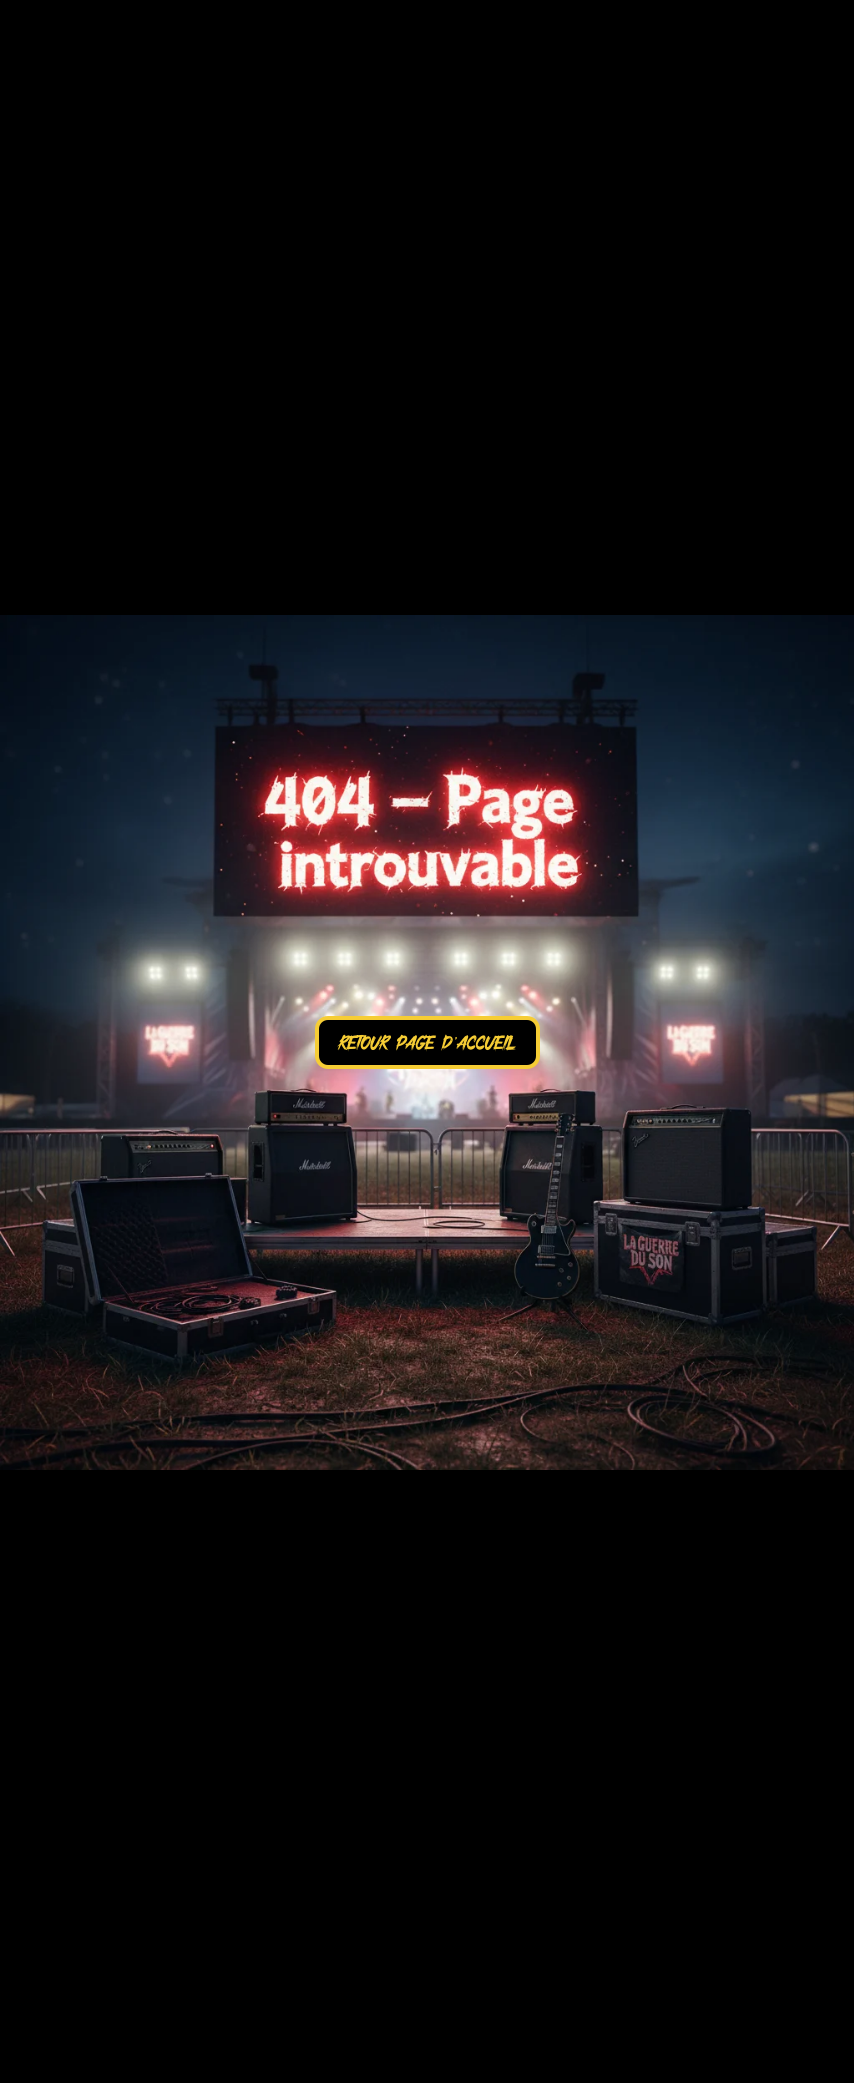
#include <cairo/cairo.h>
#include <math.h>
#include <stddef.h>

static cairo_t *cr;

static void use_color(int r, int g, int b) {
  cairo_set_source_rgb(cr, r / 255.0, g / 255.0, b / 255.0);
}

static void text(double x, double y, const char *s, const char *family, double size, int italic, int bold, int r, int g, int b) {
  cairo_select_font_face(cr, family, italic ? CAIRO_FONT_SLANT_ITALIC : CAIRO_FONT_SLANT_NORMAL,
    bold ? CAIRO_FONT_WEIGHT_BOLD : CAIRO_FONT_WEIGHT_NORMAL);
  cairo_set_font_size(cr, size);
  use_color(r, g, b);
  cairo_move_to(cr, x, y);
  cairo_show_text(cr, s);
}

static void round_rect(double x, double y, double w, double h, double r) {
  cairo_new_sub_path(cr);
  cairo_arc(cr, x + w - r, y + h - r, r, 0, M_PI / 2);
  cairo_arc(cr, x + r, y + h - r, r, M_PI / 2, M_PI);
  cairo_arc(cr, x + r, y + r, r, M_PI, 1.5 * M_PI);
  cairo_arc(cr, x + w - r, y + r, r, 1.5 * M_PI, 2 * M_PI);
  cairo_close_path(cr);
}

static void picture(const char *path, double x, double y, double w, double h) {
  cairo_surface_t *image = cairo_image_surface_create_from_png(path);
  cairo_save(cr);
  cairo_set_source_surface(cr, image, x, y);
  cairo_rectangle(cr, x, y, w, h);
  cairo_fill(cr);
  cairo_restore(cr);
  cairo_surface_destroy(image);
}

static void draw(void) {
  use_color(0, 0, 0);
  cairo_paint(cr);
  picture("img_01.png", 0, 615, 854, 855);
  use_color(0, 0, 0);
  round_rect(317, 1018, 221, 49, 11);
  cairo_fill_preserve(cr);
  use_color(246, 205, 53);
  cairo_set_line_width(cr, 4);
  cairo_stroke(cr);
  text(339, 1050, "RETOUR PAGE D'ACCUEIL", "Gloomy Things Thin", 20, 0, 0, 246, 205, 53);
}

int main(void) {
  cairo_surface_t *surface = cairo_image_surface_create(CAIRO_FORMAT_RGB24, 854, 2083);
  cr = cairo_create(surface);
  cairo_font_options_t *options = cairo_font_options_create();
  cairo_font_options_set_hint_metrics(options, CAIRO_HINT_METRICS_OFF);
  cairo_font_options_set_hint_style(options, CAIRO_HINT_STYLE_NONE);
  cairo_set_font_options(cr, options);
  cairo_set_miter_limit(cr, 4);
  draw();
  cairo_surface_write_to_png(surface, "out.png");
  cairo_font_options_destroy(options);
  cairo_destroy(cr);
  cairo_surface_destroy(surface);
  return 0;
}
